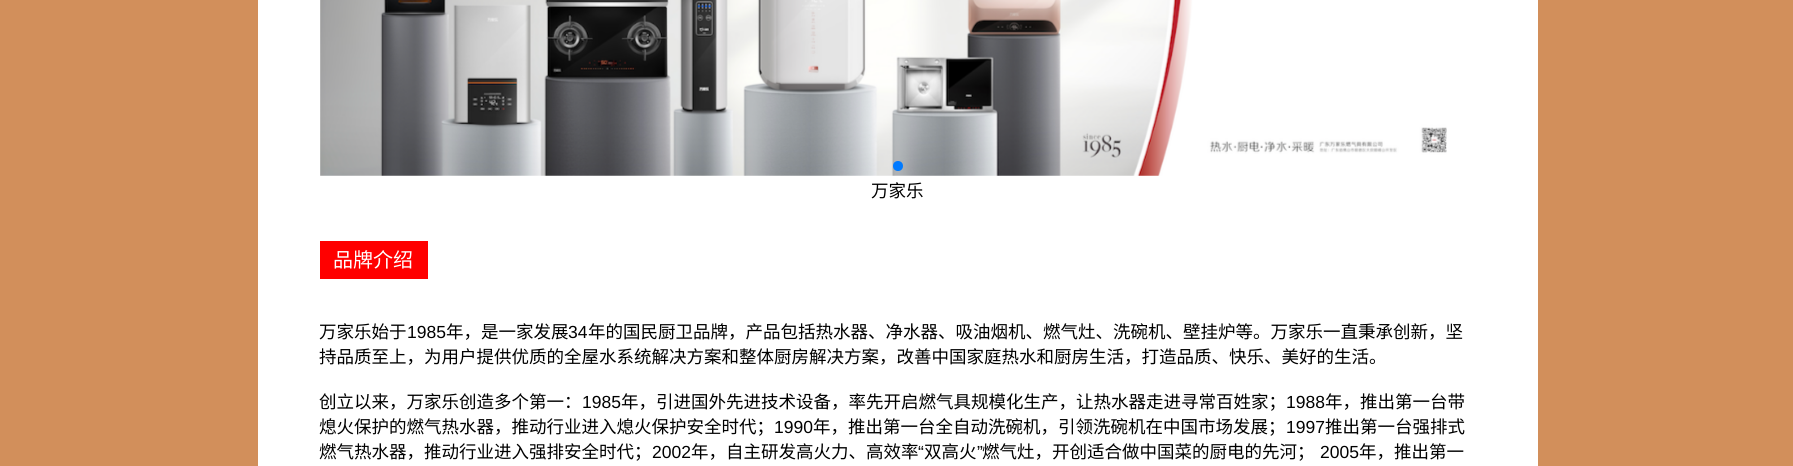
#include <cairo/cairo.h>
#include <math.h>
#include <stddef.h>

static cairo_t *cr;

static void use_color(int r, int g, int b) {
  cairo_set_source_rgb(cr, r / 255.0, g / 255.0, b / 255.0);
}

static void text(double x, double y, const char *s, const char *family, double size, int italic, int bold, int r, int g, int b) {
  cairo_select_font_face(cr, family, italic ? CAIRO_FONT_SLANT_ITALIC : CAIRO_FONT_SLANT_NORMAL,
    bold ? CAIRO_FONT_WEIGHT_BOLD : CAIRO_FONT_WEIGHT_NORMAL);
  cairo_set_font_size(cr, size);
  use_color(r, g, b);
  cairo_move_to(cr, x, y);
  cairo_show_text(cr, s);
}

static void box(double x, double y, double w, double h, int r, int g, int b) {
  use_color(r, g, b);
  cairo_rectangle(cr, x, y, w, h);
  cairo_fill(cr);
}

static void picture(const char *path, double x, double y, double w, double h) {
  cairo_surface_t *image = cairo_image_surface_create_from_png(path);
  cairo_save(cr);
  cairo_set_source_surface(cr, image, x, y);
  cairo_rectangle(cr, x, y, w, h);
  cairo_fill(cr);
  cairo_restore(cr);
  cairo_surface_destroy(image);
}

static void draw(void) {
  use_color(210, 143, 91);
  cairo_paint(cr);
  box(258, 0, 1280, 466, 255, 255, 255);
  picture("img_01.png", 320, 0, 1127, 176);
  use_color(0, 122, 255);
  cairo_arc(cr, 898, 166, 5, 0, 2 * M_PI);
  cairo_fill(cr);
  box(320, 241, 108, 38, 255, 0, 0);
  text(871, 197, "万家乐", "Noto Sans CJK SC", 17.5, 0, 0, 0, 0, 0);
  text(333, 267, "品牌介绍", "Noto Sans CJK SC", 20, 0, 0, 255, 255, 255);
  text(319, 338, "万家乐始于", "Noto Sans CJK SC", 17.5, 0, 0, 0, 0, 0);
  text(407, 338, "1985", "Liberation Sans", 17.5, 0, 0, 0, 0, 0);
  text(446, 338, "年，是一家发展", "Noto Sans CJK SC", 17.5, 0, 0, 0, 0, 0);
  text(568, 338, "34", "Liberation Sans", 17.5, 0, 0, 0, 0, 0);
  text(588, 338, "年的国民厨卫品牌，产品包括热水器、净水器、吸油烟机、燃气灶、洗碗机、壁挂炉等。万家乐一直秉承创新，坚", "Noto Sans CJK SC", 17.5, 0, 0, 0, 0, 0);
  text(319, 363, "持品质至上，为用户提供优质的全屋水系统解决方案和整体厨房解决方案，改善中国家庭热水和厨房生活，打造品质、快乐、美好的生活。", "Noto Sans CJK SC", 17.5, 0, 0, 0, 0, 0);
  text(319, 408, "创立以来，万家乐创造多个第一：", "Noto Sans CJK SC", 17.5, 0, 0, 0, 0, 0);
  text(582, 408, "1985", "Liberation Sans", 17.5, 0, 0, 0, 0, 0);
  text(621, 408, "年，引进国外先进技术设备，率先开启燃气具规模化生产，让热水器走进寻常百姓家；", "Noto Sans CJK SC", 17.5, 0, 0, 0, 0, 0);
  text(1286, 408, "1988", "Liberation Sans", 17.5, 0, 0, 0, 0, 0);
  text(1325, 408, "年，推出第一台带", "Noto Sans CJK SC", 17.5, 0, 0, 0, 0, 0);
  text(319, 433, "熄火保护的燃气热水器，推动行业进入熄火保护安全时代；", "Noto Sans CJK SC", 17.5, 0, 0, 0, 0, 0);
  text(774, 433, "1990", "Liberation Sans", 17.5, 0, 0, 0, 0, 0);
  text(813, 433, "年，推出第一台全自动洗碗机，引领洗碗机在中国市场发展；", "Noto Sans CJK SC", 17.5, 0, 0, 0, 0, 0);
  text(1286, 433, "1997", "Liberation Sans", 17.5, 0, 0, 0, 0, 0);
  text(1325, 433, "推出第一台强排式", "Noto Sans CJK SC", 17.5, 0, 0, 0, 0, 0);
  text(319, 458, "燃气热水器，推动行业进入强排安全时代；", "Noto Sans CJK SC", 17.5, 0, 0, 0, 0, 0);
  text(652, 458, "2002", "Liberation Sans", 17.5, 0, 0, 0, 0, 0);
  text(691, 458, "年，自主研发高火力、高效率", "Noto Sans CJK SC", 17.5, 0, 0, 0, 0, 0);
  text(918, 458, "“", "Liberation Sans", 17.5, 0, 0, 0, 0, 0);
  text(924, 458, "双高火", "Noto Sans CJK SC", 17.5, 0, 0, 0, 0, 0);
  text(977, 458, "”", "Liberation Sans", 17.5, 0, 0, 0, 0, 0);
  text(982, 458, "燃气灶，开创适合做中国菜的厨电的先河；", "Noto Sans CJK SC", 17.5, 0, 0, 0, 0, 0);
  text(1320, 458, "2005", "Liberation Sans", 17.5, 0, 0, 0, 0, 0);
  text(1359, 458, "年，推出第一", "Noto Sans CJK SC", 17.5, 0, 0, 0, 0, 0);
}

int main(void) {
  cairo_surface_t *surface = cairo_image_surface_create(CAIRO_FORMAT_RGB24, 1793, 466);
  cr = cairo_create(surface);
  cairo_font_options_t *options = cairo_font_options_create();
  cairo_font_options_set_hint_metrics(options, CAIRO_HINT_METRICS_OFF);
  cairo_font_options_set_hint_style(options, CAIRO_HINT_STYLE_NONE);
  cairo_set_font_options(cr, options);
  cairo_set_miter_limit(cr, 4);
  draw();
  cairo_surface_write_to_png(surface, "out.png");
  cairo_font_options_destroy(options);
  cairo_destroy(cr);
  cairo_surface_destroy(surface);
  return 0;
}
